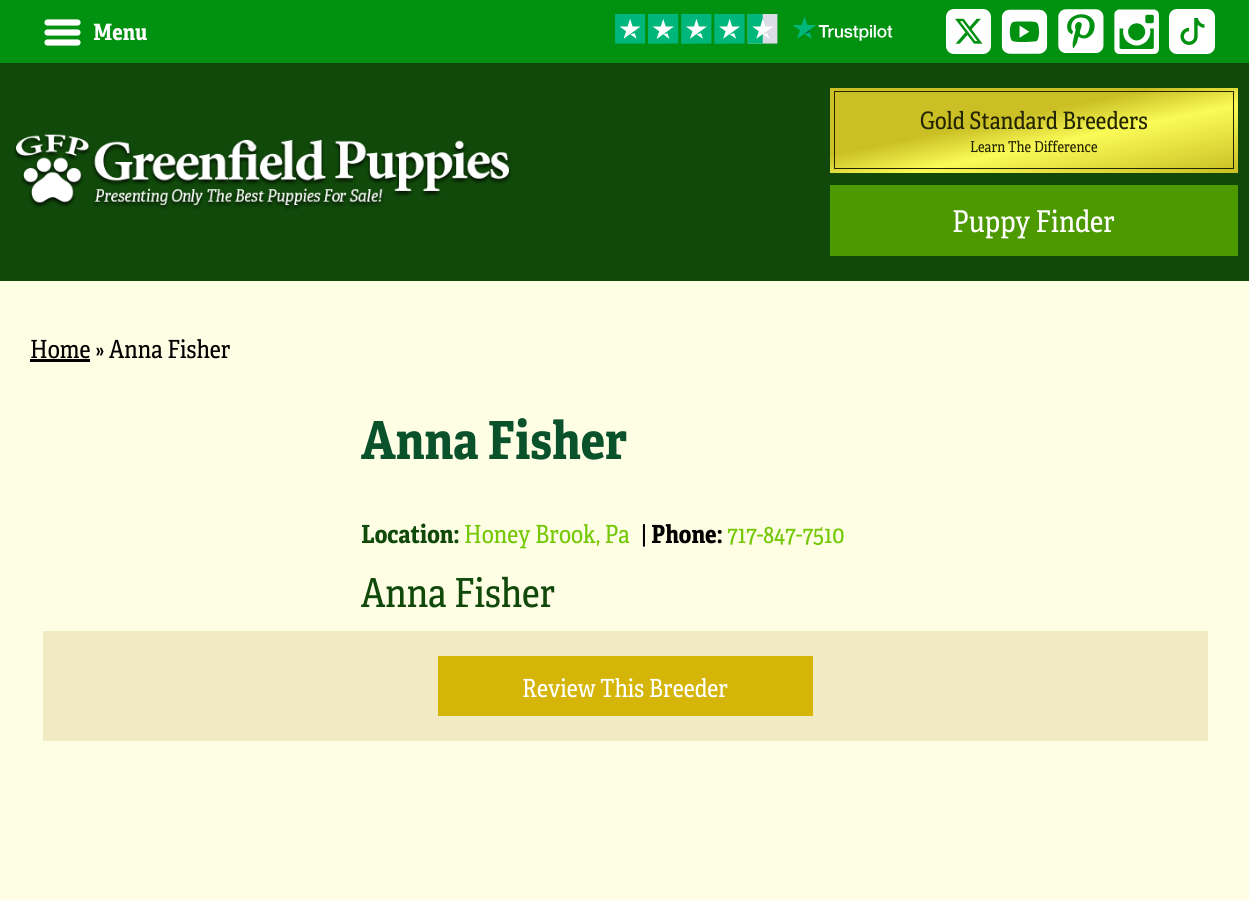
#include <cairo/cairo.h>
#include <math.h>
#include <stddef.h>

static cairo_t *cr;

static void use_color(int r, int g, int b) {
  cairo_set_source_rgb(cr, r / 255.0, g / 255.0, b / 255.0);
}

static void text(double x, double y, const char *s, const char *family, double size, int italic, int bold, int r, int g, int b) {
  cairo_select_font_face(cr, family, italic ? CAIRO_FONT_SLANT_ITALIC : CAIRO_FONT_SLANT_NORMAL,
    bold ? CAIRO_FONT_WEIGHT_BOLD : CAIRO_FONT_WEIGHT_NORMAL);
  cairo_set_font_size(cr, size);
  use_color(r, g, b);
  cairo_move_to(cr, x, y);
  cairo_show_text(cr, s);
}

static void box(double x, double y, double w, double h, int r, int g, int b) {
  use_color(r, g, b);
  cairo_rectangle(cr, x, y, w, h);
  cairo_fill(cr);
}

static void round_rect(double x, double y, double w, double h, double r) {
  cairo_new_sub_path(cr);
  cairo_arc(cr, x + w - r, y + h - r, r, 0, M_PI / 2);
  cairo_arc(cr, x + r, y + h - r, r, M_PI / 2, M_PI);
  cairo_arc(cr, x + r, y + r, r, M_PI, 1.5 * M_PI);
  cairo_arc(cr, x + w - r, y + r, r, 1.5 * M_PI, 2 * M_PI);
  cairo_close_path(cr);
}

static void picture(const char *path, double x, double y, double w, double h) {
  cairo_surface_t *image = cairo_image_surface_create_from_png(path);
  cairo_save(cr);
  cairo_set_source_surface(cr, image, x, y);
  cairo_rectangle(cr, x, y, w, h);
  cairo_fill(cr);
  cairo_restore(cr);
  cairo_surface_destroy(image);
}

static void draw(void) {
  cairo_pattern_t *gradient;
  use_color(254, 254, 228);
  cairo_paint(cr);
  box(0, 0, 1249, 63, 0, 145, 17);
  picture("img_01.png", 44, 19, 37, 27);
  picture("img_02.png", 615, 13, 278, 31);
  use_color(255, 255, 255);
  round_rect(946, 9, 45, 45, 8);
  cairo_fill(cr);
  picture("img_03.png", 955, 18, 28, 26);
  picture("img_04.png", 1001, 9, 47, 45);
  picture("img_05.png", 1058, 9, 46, 44);
  picture("img_06.png", 1114, 9, 45, 45);
  round_rect(1169, 9, 46, 45, 8);
  cairo_fill(cr);
  picture("img_07.png", 1180, 18, 25, 27);
  box(0, 63, 1249, 218, 16, 73, 9);
  picture("img_08.png", 13, 134, 499, 76);
  gradient = cairo_pattern_create_linear(1204, 10, 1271, 335);
  cairo_pattern_add_color_stop_rgba(gradient, 0.2, 0.792, 0.749, 0.145, 1);
  cairo_pattern_add_color_stop_rgba(gradient, 0.3, 0.98, 0.984, 0.337, 1);
  cairo_pattern_add_color_stop_rgba(gradient, 0.5, 0.792, 0.749, 0.145, 1);
  cairo_pattern_add_color_stop_rgba(gradient, 0.7, 0.792, 0.749, 0.145, 1);
  cairo_pattern_add_color_stop_rgba(gradient, 0.8, 0.98, 0.984, 0.337, 1);
  cairo_pattern_add_color_stop_rgba(gradient, 0.9, 0.792, 0.749, 0.145, 1);
  cairo_set_source(cr, gradient);
  cairo_pattern_destroy(gradient);
  cairo_rectangle(cr, 830, 88, 408, 85);
  cairo_fill(cr);
  cairo_rectangle(cr, 834.5, 91.5, 399, 77);
  use_color(37, 37, 1);
  cairo_set_line_width(cr, 1);
  cairo_stroke(cr);
  box(830, 185, 408, 71, 77, 153, 0);
  box(30, 359, 60, 3, 0, 0, 0);
  box(43, 631, 1165, 110, 242, 234, 194);
  box(438, 656, 375, 60, 213, 182, 8);
  text(93, 40, "Menu", "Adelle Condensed", 22.5, 0, 1, 255, 255, 255);
  text(920, 129, "Gold Standard Breeders", "Adelle Condensed", 24, 0, 0, 37, 37, 1);
  text(970, 152, "Learn The Difference", "Adelle Condensed", 15, 0, 0, 37, 37, 1);
  text(952, 232, "Puppy Finder", "Adelle Condensed", 30, 0, 0, 255, 255, 255);
  text(30, 358, "Home » Anna Fisher", "Adelle Condensed", 25, 0, 0, 0, 0, 0);
  text(361, 459, "Anna Fisher", "Adelle Condensed", 52.5, 0, 1, 10, 82, 43);
  text(361, 543, "Location:", "Adelle Condensed", 25, 0, 1, 16, 73, 9);
  text(464, 543, "Honey Brook, Pa", "Adelle Condensed", 25, 0, 0, 116, 200, 5);
  text(641, 543, "|", "Adelle Condensed", 25, 0, 0, 0, 0, 0);
  text(651, 543, "Phone:", "Adelle Condensed", 25, 0, 1, 0, 0, 0);
  text(727, 543, "717-847-7510", "Adelle Condensed", 25, 0, 0, 116, 200, 5);
  text(361, 607, "Anna Fisher", "Adelle Condensed", 40, 0, 0, 16, 73, 9);
  text(522, 697, "Review This Breeder", "Adelle Condensed", 25, 0, 0, 255, 255, 255);
}

int main(void) {
  cairo_surface_t *surface = cairo_image_surface_create(CAIRO_FORMAT_RGB24, 1249, 900);
  cr = cairo_create(surface);
  cairo_font_options_t *options = cairo_font_options_create();
  cairo_font_options_set_hint_metrics(options, CAIRO_HINT_METRICS_OFF);
  cairo_font_options_set_hint_style(options, CAIRO_HINT_STYLE_NONE);
  cairo_set_font_options(cr, options);
  cairo_set_miter_limit(cr, 4);
  draw();
  cairo_surface_write_to_png(surface, "out.png");
  cairo_font_options_destroy(options);
  cairo_destroy(cr);
  cairo_surface_destroy(surface);
  return 0;
}
